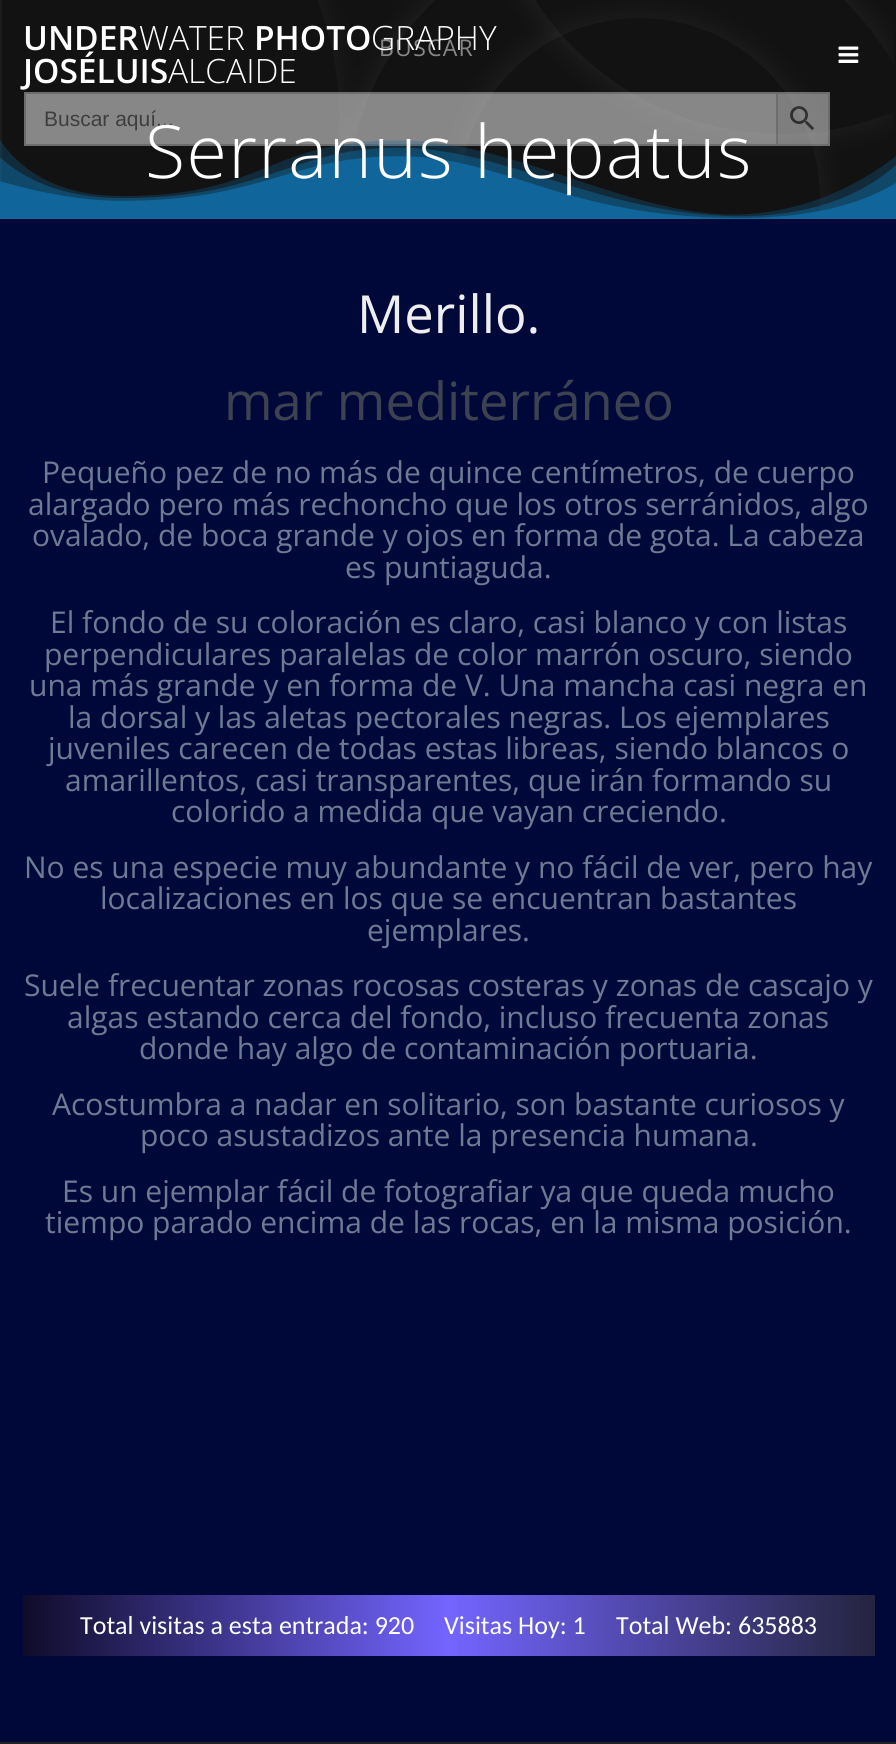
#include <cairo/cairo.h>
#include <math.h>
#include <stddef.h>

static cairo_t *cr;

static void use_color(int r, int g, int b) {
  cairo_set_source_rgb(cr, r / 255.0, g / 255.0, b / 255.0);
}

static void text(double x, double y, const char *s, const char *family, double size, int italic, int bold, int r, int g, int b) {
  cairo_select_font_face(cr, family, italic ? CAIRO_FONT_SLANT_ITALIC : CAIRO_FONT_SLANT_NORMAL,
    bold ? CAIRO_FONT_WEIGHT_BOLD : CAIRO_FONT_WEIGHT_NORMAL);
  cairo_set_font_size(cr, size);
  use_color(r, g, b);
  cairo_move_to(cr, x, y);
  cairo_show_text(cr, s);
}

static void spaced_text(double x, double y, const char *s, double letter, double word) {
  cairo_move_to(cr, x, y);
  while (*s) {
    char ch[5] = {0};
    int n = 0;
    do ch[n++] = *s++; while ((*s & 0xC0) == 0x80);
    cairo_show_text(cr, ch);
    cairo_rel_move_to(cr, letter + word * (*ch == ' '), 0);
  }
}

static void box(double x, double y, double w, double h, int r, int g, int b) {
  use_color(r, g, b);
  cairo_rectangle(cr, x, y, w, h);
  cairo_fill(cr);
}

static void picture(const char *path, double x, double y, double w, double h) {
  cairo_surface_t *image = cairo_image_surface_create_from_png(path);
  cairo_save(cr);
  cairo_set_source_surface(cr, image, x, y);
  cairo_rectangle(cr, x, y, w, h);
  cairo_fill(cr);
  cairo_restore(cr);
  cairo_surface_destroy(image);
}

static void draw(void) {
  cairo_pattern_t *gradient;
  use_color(34, 34, 34);
  cairo_paint(cr);
  box(2, 0, 894, 218, 18, 18, 18);
  box(0, 0, 2, 182, 28, 28, 28);
  box(26, 94, 750, 50, 135, 135, 135);
  box(24, 92, 752, 2, 108, 108, 108);
  box(24, 144, 752, 2, 108, 108, 108);
  box(24, 92, 2, 54, 108, 108, 108);
  use_color(126, 126, 126);
  cairo_rectangle(cr, 777, 93, 52, 52);
  cairo_fill_preserve(cr);
  use_color(108, 108, 108);
  cairo_stroke(cr);
  picture("img_02.png", 790, 106, 25, 25);
  box(0, 219, 896, 1523, 0, 8, 58);
  gradient = cairo_pattern_create_linear(23, 1625, 875, 1625);
  cairo_pattern_add_color_stop_rgba(gradient, 0, 0.059, 0.047, 0.161, 1);
  cairo_pattern_add_color_stop_rgba(gradient, 0.5, 0.451, 0.396, 1, 1);
  cairo_pattern_add_color_stop_rgba(gradient, 1, 0.141, 0.141, 0.243, 1);
  cairo_set_source(cr, gradient);
  cairo_pattern_destroy(gradient);
  cairo_rectangle(cr, 23, 1595, 852, 61);
  cairo_fill(cr);
  text(23, 50, "UNDER", "Open Sans SemiBold", 33.5, 0, 0, 255, 255, 255);
  text(139, 50, "WATER", "Open Sans Light", 33.5, 0, 0, 255, 255, 255);
  text(23, 83, "JOSÉLUIS", "Open Sans SemiBold", 33.5, 0, 0, 255, 255, 255);
  text(168, 83, "ALCAIDE", "Open Sans Light", 33.5, 0, 0, 255, 255, 255);
  cairo_select_font_face(cr, "Open Sans", CAIRO_FONT_SLANT_NORMAL, CAIRO_FONT_WEIGHT_NORMAL);
  cairo_set_font_size(cr, 23);
  use_color(135, 135, 135);
  spaced_text(379, 56, "BUSCAR", 1.25, 0);
  text(44, 126, "Buscar aquí...", "Liberation Sans", 21, 0, 0, 62, 62, 62);
  picture("img_03.png", 318, 0, 576, 211);
  picture("img_01.png", 838, 46, 21, 17);
  text(371, 50, "GRAPHY", "Open Sans Light", 33.5, 0, 0, 255, 255, 255);
  text(254, 50, "PHOTO", "Open Sans SemiBold", 33.5, 0, 0, 255, 255, 255);
  picture("img_04.png", 0, 140, 896, 79);
  cairo_select_font_face(cr, "Open Sans Light", CAIRO_FONT_SLANT_NORMAL, CAIRO_FONT_WEIGHT_NORMAL);
  cairo_set_font_size(cr, 73.5);
  spaced_text(145, 178, "Serranus hepatus", 1.4, 0);
  text(357, 333, "Merillo.", "Open Sans", 52.5, 0, 0, 238, 238, 238);
  text(224, 420, "mar mediterráneo", "Open Sans", 52.5, 0, 0, 60, 66, 79);
  text(42, 483, "Pequeño pez de no más de quince centímetros, de cuerpo", "Open Sans", 30, 0, 0, 107, 124, 147);
  text(28, 515, "alargado pero más rechoncho que los otros serránidos, algo", "Open Sans", 30, 0, 0, 107, 124, 147);
  text(32, 546, "ovalado, de boca grande y ojos en forma de gota. La cabeza", "Open Sans", 30, 0, 0, 107, 124, 147);
  text(345, 578, "es puntiaguda.", "Open Sans", 30, 0, 0, 107, 124, 147);
  text(50, 633, "El fondo de su coloración es claro, casi blanco y con listas", "Open Sans", 30, 0, 0, 107, 124, 147);
  text(44, 665, "perpendiculares paralelas de color marrón oscuro, siendo", "Open Sans", 30, 0, 0, 107, 124, 147);
  text(29, 696, "una más grande y en forma de V. Una mancha casi negra en", "Open Sans", 30, 0, 0, 107, 124, 147);
  text(68, 728, "la dorsal y las aletas pectorales negras. Los ejemplares", "Open Sans", 30, 0, 0, 107, 124, 147);
  text(48, 759, "juveniles carecen de todas estas libreas, siendo blancos o", "Open Sans", 30, 0, 0, 107, 124, 147);
  text(65, 791, "amarillentos, casi transparentes, que irán formando su", "Open Sans", 30, 0, 0, 107, 124, 147);
  text(171, 822, "colorido a medida que vayan creciendo.", "Open Sans", 30, 0, 0, 107, 124, 147);
  text(24, 878, "No es una especie muy abundante y no fácil de ver, pero hay", "Open Sans", 30, 0, 0, 107, 124, 147);
  text(100, 909, "localizaciones en los que se encuentran bastantes", "Open Sans", 30, 0, 0, 107, 124, 147);
  text(367, 941, "ejemplares.", "Open Sans", 30, 0, 0, 107, 124, 147);
  text(24, 996, "Suele frecuentar zonas rocosas costeras y zonas de cascajo y", "Open Sans", 30, 0, 0, 107, 124, 147);
  text(67, 1028, "algas estando cerca del fondo, incluso frecuenta zonas", "Open Sans", 30, 0, 0, 107, 124, 147);
  text(139, 1059, "donde hay algo de contaminación portuaria.", "Open Sans", 30, 0, 0, 107, 124, 147);
  text(52, 1115, "Acostumbra a nadar en solitario, son bastante curiosos y", "Open Sans", 30, 0, 0, 107, 124, 147);
  text(140, 1146, "poco asustadizos ante la presencia humana.", "Open Sans", 30, 0, 0, 107, 124, 147);
  text(62, 1202, "Es un ejemplar fácil de fotografiar ya que queda mucho", "Open Sans", 30, 0, 0, 107, 124, 147);
  text(45, 1233, "tiempo parado encima de las rocas, en la misma posición.", "Open Sans", 30, 0, 0, 107, 124, 147);
  text(80, 1634, "Total visitas a esta entrada: 920", "Carlito", 26, 0, 0, 255, 255, 255);
  text(444, 1634, "Visitas Hoy: 1", "Carlito", 26, 0, 0, 255, 255, 255);
  text(616, 1634, "Total Web: 635883", "Carlito", 26, 0, 0, 255, 255, 255);
}

int main(void) {
  cairo_surface_t *surface = cairo_image_surface_create(CAIRO_FORMAT_RGB24, 896, 1744);
  cr = cairo_create(surface);
  cairo_font_options_t *options = cairo_font_options_create();
  cairo_font_options_set_hint_metrics(options, CAIRO_HINT_METRICS_OFF);
  cairo_font_options_set_hint_style(options, CAIRO_HINT_STYLE_NONE);
  cairo_set_font_options(cr, options);
  cairo_set_miter_limit(cr, 4);
  draw();
  cairo_surface_write_to_png(surface, "out.png");
  cairo_font_options_destroy(options);
  cairo_destroy(cr);
  cairo_surface_destroy(surface);
  return 0;
}
